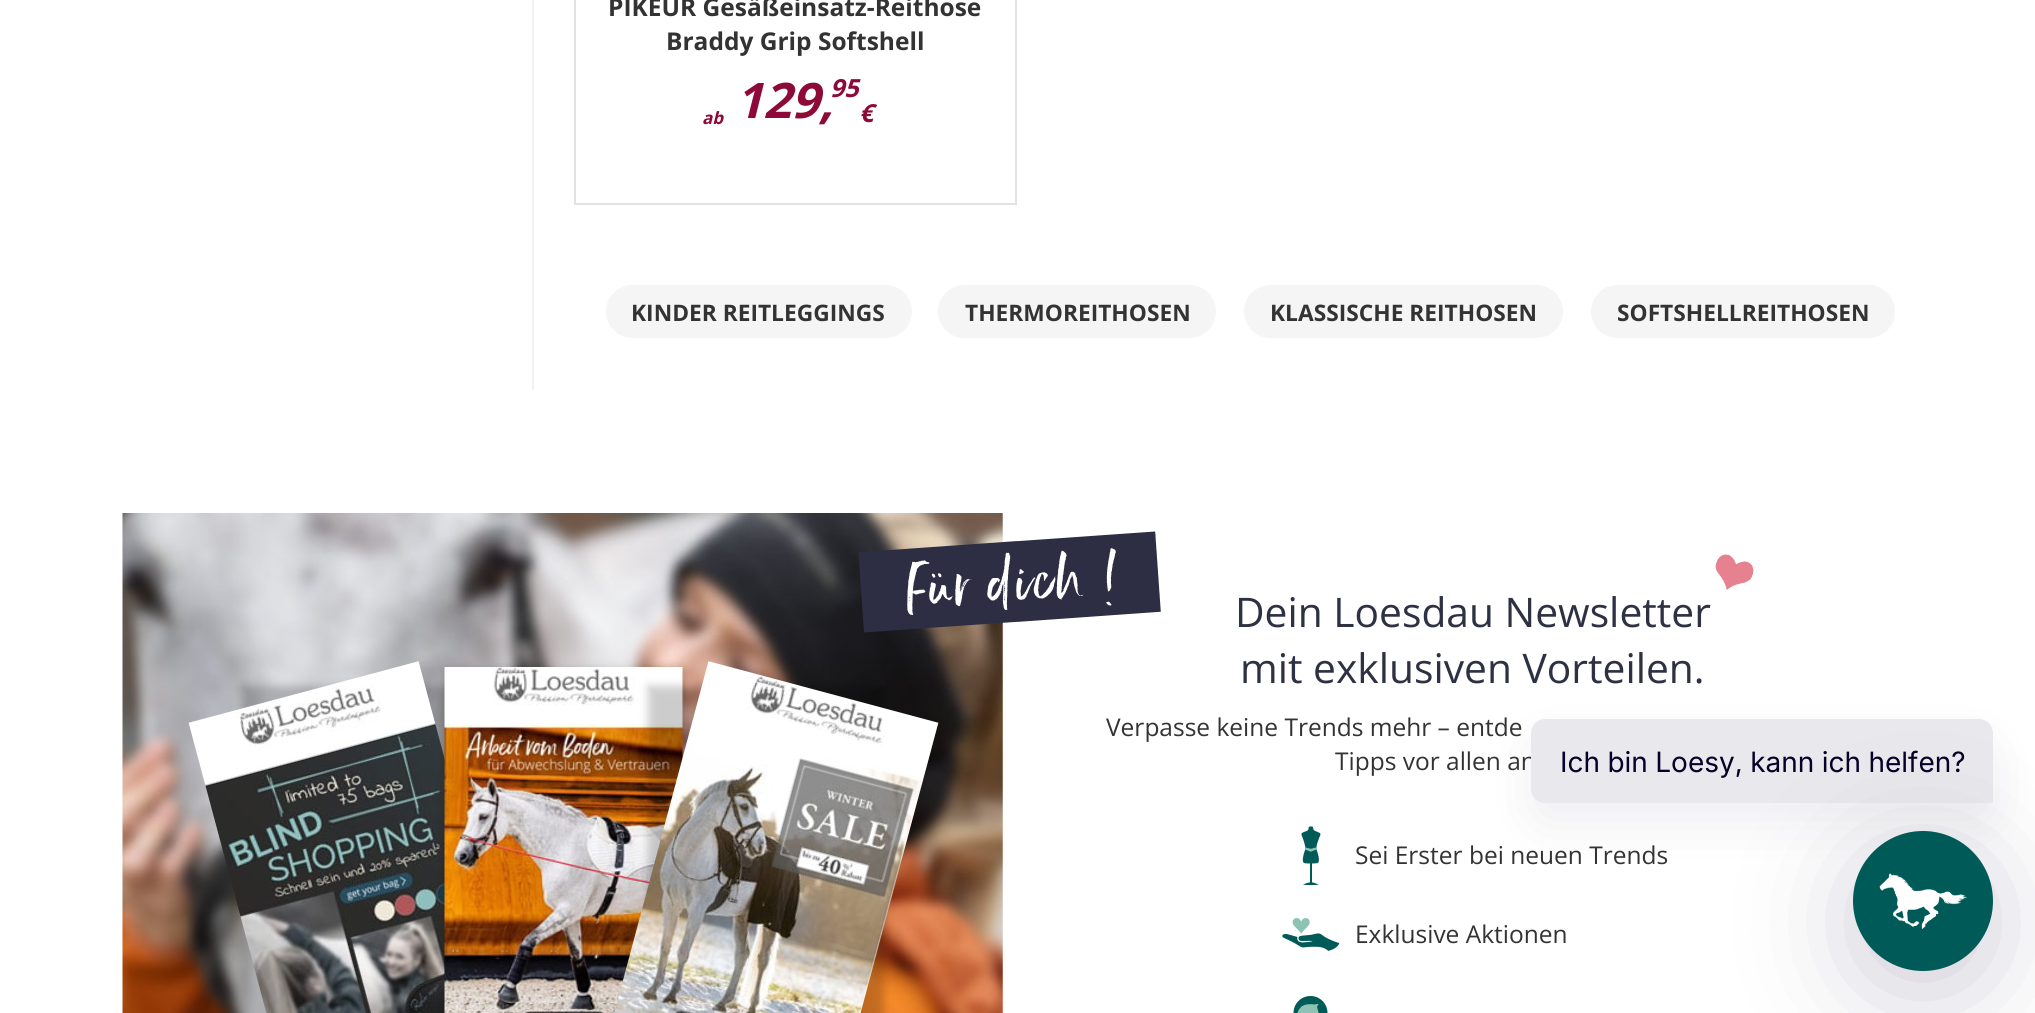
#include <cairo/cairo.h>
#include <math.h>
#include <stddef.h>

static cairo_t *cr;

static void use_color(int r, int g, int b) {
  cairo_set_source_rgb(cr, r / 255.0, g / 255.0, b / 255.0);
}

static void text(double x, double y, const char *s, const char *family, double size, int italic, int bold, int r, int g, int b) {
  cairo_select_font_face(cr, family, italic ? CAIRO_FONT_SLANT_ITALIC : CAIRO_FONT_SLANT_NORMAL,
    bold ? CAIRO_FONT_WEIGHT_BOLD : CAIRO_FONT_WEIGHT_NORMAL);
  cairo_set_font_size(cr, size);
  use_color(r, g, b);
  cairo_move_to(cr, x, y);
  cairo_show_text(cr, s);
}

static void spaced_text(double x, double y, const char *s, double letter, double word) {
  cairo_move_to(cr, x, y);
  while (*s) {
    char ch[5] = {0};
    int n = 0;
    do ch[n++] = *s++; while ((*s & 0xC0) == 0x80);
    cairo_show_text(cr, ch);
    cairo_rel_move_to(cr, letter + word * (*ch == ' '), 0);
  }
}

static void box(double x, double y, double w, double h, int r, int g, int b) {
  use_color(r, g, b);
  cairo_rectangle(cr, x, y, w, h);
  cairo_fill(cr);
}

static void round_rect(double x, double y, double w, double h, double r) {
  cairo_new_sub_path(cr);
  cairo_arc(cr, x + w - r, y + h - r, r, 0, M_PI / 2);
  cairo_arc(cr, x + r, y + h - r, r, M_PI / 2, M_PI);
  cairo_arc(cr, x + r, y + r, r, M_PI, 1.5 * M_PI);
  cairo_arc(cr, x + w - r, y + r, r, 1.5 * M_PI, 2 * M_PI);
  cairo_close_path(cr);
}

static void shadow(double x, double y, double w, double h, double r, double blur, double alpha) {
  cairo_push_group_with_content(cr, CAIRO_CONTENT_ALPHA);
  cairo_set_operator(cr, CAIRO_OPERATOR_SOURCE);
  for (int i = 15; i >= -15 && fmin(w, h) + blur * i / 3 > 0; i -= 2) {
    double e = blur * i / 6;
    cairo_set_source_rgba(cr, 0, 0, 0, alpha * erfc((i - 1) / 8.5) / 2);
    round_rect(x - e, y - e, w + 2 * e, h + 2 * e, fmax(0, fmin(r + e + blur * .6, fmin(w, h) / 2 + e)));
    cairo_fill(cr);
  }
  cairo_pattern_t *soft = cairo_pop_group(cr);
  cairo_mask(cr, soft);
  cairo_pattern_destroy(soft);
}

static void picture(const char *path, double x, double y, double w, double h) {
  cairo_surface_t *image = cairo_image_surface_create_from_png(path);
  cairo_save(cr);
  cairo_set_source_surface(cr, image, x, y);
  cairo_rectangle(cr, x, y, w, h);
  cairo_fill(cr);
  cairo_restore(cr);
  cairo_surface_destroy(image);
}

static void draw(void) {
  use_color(255, 255, 255);
  cairo_paint(cr);
  box(532, 0, 2, 390, 242, 242, 242);
  cairo_rectangle(cr, 575, -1, 441, 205);
  use_color(226, 226, 226);
  cairo_stroke(cr);
  use_color(245, 245, 245);
  round_rect(606, 285, 306, 53, 26.5);
  cairo_fill(cr);
  round_rect(938, 285, 278, 53, 26.5);
  cairo_fill(cr);
  round_rect(1244, 285, 319, 53, 26.5);
  cairo_fill(cr);
  round_rect(1591, 285, 304, 53, 26.5);
  cairo_fill(cr);
  picture("img_01.png", 122, 513, 881, 500);
  use_color(0, 0, 0);
  shadow(242, 686, 238, 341, 0, 4.5, 0.2);
  picture("img_02.png", 188, 661, 257, 352);
  shadow(445, 669, 238, 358, 0, 4.5, 0.2);
  picture("img_03.png", 444, 667, 239, 346);
  shadow(648, 686, 236, 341, 0, 4.5, 0.2);
  picture("img_04.png", 614, 661, 325, 352);
  picture("img_05.png", 858, 531, 303, 102);
  picture("img_06.png", 1715, 554, 39, 36);
  picture("img_07.png", 1301, 826, 20, 60);
  picture("img_08.png", 1282, 918, 58, 33);
  picture("img_09.png", 1293, 996, 35, 17);
  use_color(6, 1, 39);
  shadow(1538, 747, 448, 70, 7, 28, 0.08);
  text(608, 16, "PIKEUR Gesäßeinsatz-Reithose", "Open Sans", 24.5, 0, 1, 51, 51, 51);
  text(666, 50, "Braddy Grip Softshell", "Open Sans", 24.5, 0, 1, 51, 51, 51);
  text(702, 124, "ab", "Open Sans", 17, 1, 1, 141, 10, 56);
  text(735, 118, "129,", "Open Sans", 49, 1, 1, 141, 10, 56);
  text(830, 97, "95", "Open Sans", 25, 1, 1, 141, 10, 56);
  text(859, 122, "€", "Open Sans", 25, 1, 1, 141, 10, 56);
  text(631, 321, "KINDER REITLEGGINGS", "Open Sans", 22.75, 0, 1, 51, 51, 51);
  text(965, 321, "THERMOREITHOSEN", "Open Sans", 22.75, 0, 1, 51, 51, 51);
  text(1270, 321, "KLASSISCHE REITHOSEN", "Open Sans", 22.75, 0, 1, 51, 51, 51);
  text(1617, 321, "SOFTSHELLREITHOSEN", "Open Sans", 22.75, 0, 1, 51, 51, 51);
  text(1235, 627, "Dein Loesdau Newsletter", "Open Sans", 40.75, 0, 0, 46, 49, 67);
  text(1240, 683, "mit exklusiven Vorteilen.", "Open Sans", 40.75, 0, 0, 46, 49, 67);
  text(1106, 736, "Verpasse keine Trends mehr – entde", "Open Sans", 24.5, 0, 0, 51, 51, 51);
  text(1335, 770, "Tipps vor allen an", "Open Sans", 24.5, 0, 0, 51, 51, 51);
  text(1355, 864, "Sei Erster bei neuen Trends", "Open Sans", 24.5, 0, 0, 51, 51, 51);
  text(1355, 943, "Exklusive Aktionen", "Open Sans", 24.5, 0, 0, 51, 51, 51);
  use_color(233, 233, 237);
  cairo_new_path(cr);
  cairo_move_to(cr, 1545, 719);
  cairo_line_to(cr, 1979, 719);
  cairo_curve_to(cr, 1986.5, 719, 1993, 725.5, 1993, 733);
  cairo_line_to(cr, 1993, 803);
  cairo_line_to(cr, 1545, 803);
  cairo_curve_to(cr, 1537.5, 803, 1531, 796.5, 1531, 789);
  cairo_line_to(cr, 1531, 733);
  cairo_curve_to(cr, 1531, 725.5, 1537.5, 719, 1545, 719);
  cairo_close_path(cr);
  cairo_fill(cr);
  use_color(62, 47, 89);
  shadow(1853, 852, 140, 140, 70, 56, 0.24);
  use_color(0, 91, 88);
  cairo_arc(cr, 1923, 901, 70, 0, 2 * M_PI);
  cairo_fill(cr);
  picture("img_10.png", 1879, 873, 88, 57);
  cairo_select_font_face(cr, "Inter", CAIRO_FONT_SLANT_NORMAL, CAIRO_FONT_WEIGHT_NORMAL);
  cairo_set_font_size(cr, 28);
  use_color(6, 1, 39);
  spaced_text(1560, 772, "Ich bin Loesy, kann ich helfen?", 0, -0.5);
}

int main(void) {
  cairo_surface_t *surface = cairo_image_surface_create(CAIRO_FORMAT_RGB24, 2035, 1013);
  cr = cairo_create(surface);
  cairo_font_options_t *options = cairo_font_options_create();
  cairo_font_options_set_hint_metrics(options, CAIRO_HINT_METRICS_OFF);
  cairo_font_options_set_hint_style(options, CAIRO_HINT_STYLE_NONE);
  cairo_set_font_options(cr, options);
  cairo_set_miter_limit(cr, 4);
  draw();
  cairo_surface_write_to_png(surface, "out.png");
  cairo_font_options_destroy(options);
  cairo_destroy(cr);
  cairo_surface_destroy(surface);
  return 0;
}
